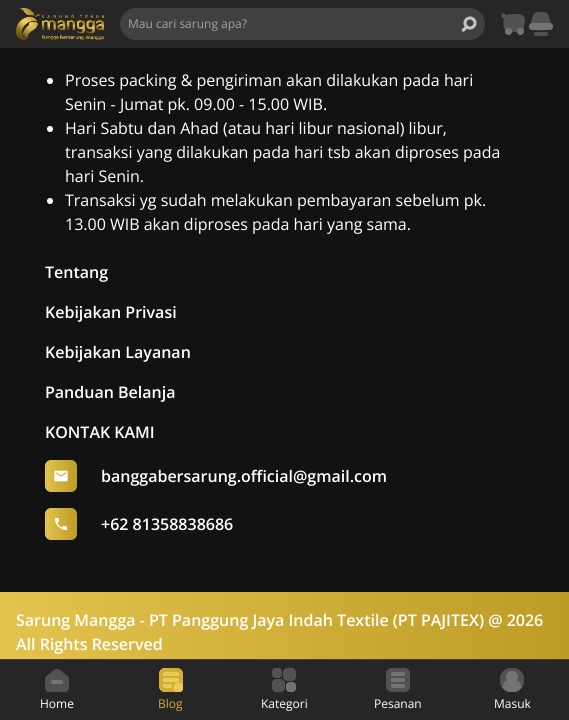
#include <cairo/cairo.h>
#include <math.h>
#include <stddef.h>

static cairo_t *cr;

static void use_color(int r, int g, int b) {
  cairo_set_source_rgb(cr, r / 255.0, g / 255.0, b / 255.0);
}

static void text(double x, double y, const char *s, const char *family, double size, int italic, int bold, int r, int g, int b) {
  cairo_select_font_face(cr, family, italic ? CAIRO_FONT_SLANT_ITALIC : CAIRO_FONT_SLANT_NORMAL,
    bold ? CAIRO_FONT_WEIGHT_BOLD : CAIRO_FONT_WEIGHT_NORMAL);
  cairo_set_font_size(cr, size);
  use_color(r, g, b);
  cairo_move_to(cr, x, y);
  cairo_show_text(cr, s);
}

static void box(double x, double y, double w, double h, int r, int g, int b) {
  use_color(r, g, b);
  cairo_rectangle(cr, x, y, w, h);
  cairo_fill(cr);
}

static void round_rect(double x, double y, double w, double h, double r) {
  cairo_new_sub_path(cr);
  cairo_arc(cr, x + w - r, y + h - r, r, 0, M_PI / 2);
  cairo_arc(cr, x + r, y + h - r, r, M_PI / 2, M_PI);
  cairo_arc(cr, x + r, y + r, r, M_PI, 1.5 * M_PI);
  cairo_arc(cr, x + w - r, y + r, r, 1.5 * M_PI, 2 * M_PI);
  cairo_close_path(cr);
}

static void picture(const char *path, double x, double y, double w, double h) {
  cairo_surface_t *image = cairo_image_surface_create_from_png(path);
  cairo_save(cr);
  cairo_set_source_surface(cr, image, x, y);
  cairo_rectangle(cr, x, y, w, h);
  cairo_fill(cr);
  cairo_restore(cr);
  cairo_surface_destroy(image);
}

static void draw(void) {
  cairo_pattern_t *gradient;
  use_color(18, 18, 18);
  cairo_paint(cr);
  box(0, 0, 569, 48, 38, 38, 38);
  picture("img_01.png", 16, 8, 88, 32);
  use_color(64, 64, 64);
  round_rect(120, 8, 365, 32, 16);
  cairo_fill(cr);
  picture("img_02.png", 461, 16, 16, 16);
  picture("img_03.png", 501, 13, 24, 22);
  picture("img_04.png", 529, 12, 24, 24);
  use_color(255, 255, 255);
  cairo_arc(cr, 50, 81, 3, 0, 2 * M_PI);
  cairo_fill(cr);
  cairo_arc(cr, 50, 129, 3, 0, 2 * M_PI);
  cairo_fill(cr);
  cairo_arc(cr, 50, 201, 3, 0, 2 * M_PI);
  cairo_fill(cr);
  gradient = cairo_pattern_create_linear(45, 476, 77, 476);
  cairo_pattern_add_color_stop_rgba(gradient, 0, 0.894, 0.765, 0.306, 1);
  cairo_pattern_add_color_stop_rgba(gradient, 1, 0.741, 0.612, 0.141, 1);
  cairo_set_source(cr, gradient);
  cairo_pattern_destroy(gradient);
  round_rect(45, 460, 32, 32, 6);
  cairo_fill(cr);
  picture("img_05.png", 54, 470, 14, 12);
  gradient = cairo_pattern_create_linear(45, 524, 77, 524);
  cairo_pattern_add_color_stop_rgba(gradient, 0, 0.894, 0.765, 0.306, 1);
  cairo_pattern_add_color_stop_rgba(gradient, 1, 0.741, 0.612, 0.141, 1);
  cairo_set_source(cr, gradient);
  cairo_pattern_destroy(gradient);
  round_rect(45, 508, 32, 32, 6);
  cairo_fill(cr);
  picture("img_06.png", 55, 518, 12, 12);
  gradient = cairo_pattern_create_linear(0, 632, 569, 632);
  cairo_pattern_add_color_stop_rgba(gradient, 0, 0.894, 0.765, 0.306, 1);
  cairo_pattern_add_color_stop_rgba(gradient, 1, 0.741, 0.612, 0.141, 1);
  cairo_set_source(cr, gradient);
  cairo_pattern_destroy(gradient);
  cairo_rectangle(cr, 0, 592, 569, 67);
  cairo_fill(cr);
  box(0, 660, 569, 60, 38, 38, 38);
  box(0, 659, 569, 1, 64, 64, 64);
  picture("img_07.png", 45, 669, 24, 23);
  picture("img_08.png", 159, 668, 24, 24);
  picture("img_09.png", 272, 668, 24, 24);
  picture("img_10.png", 386, 668, 24, 24);
  picture("img_11.png", 500, 668, 24, 24);
  text(128, 28, "Mau cari sarung apa?", "Open Sans", 12, 0, 0, 163, 163, 163);
  text(65, 86, "Proses packing & pengiriman akan dilakukan pada hari", "Open Sans", 16, 0, 0, 255, 255, 255);
  text(65, 110, "Senin - Jumat pk. 09.00 - 15.00 WIB.", "Open Sans", 16, 0, 0, 255, 255, 255);
  text(65, 134, "Hari Sabtu dan Ahad (atau hari libur nasional) libur,", "Open Sans", 16, 0, 0, 255, 255, 255);
  text(65, 158, "transaksi yang dilakukan pada hari tsb akan diproses pada", "Open Sans", 16, 0, 0, 255, 255, 255);
  text(65, 182, "hari Senin.", "Open Sans", 16, 0, 0, 255, 255, 255);
  text(65, 206, "Transaksi yg sudah melakukan pembayaran sebelum pk.", "Open Sans", 16, 0, 0, 255, 255, 255);
  text(65, 230, "13.00 WIB akan diproses pada hari yang sama.", "Open Sans", 16, 0, 0, 255, 255, 255);
  text(45, 278, "Tentang", "Open Sans SemiBold", 16, 0, 0, 255, 255, 255);
  text(45, 318, "Kebijakan Privasi", "Open Sans SemiBold", 16, 0, 0, 255, 255, 255);
  text(45, 358, "Kebijakan Layanan", "Open Sans SemiBold", 16, 0, 0, 255, 255, 255);
  text(45, 398, "Panduan Belanja", "Open Sans SemiBold", 16, 0, 0, 255, 255, 255);
  text(45, 438, "KONTAK KAMI", "Open Sans SemiBold", 16, 0, 0, 255, 255, 255);
  text(101, 482, "banggabersarung.official@gmail.com", "Open Sans SemiBold", 16, 0, 0, 255, 255, 255);
  text(101, 530, "+62 81358838686", "Open Sans SemiBold", 16, 0, 0, 255, 255, 255);
  text(16, 626, "Sarung Mangga - PT Panggung Jaya Indah Textile (PT PAJITEX) @ 2026", "Open Sans SemiBold", 16, 0, 0, 255, 255, 255);
  text(16, 650, "All Rights Reserved", "Open Sans SemiBold", 16, 0, 0, 255, 255, 255);
  text(40, 708, "Home", "Open Sans", 12, 0, 0, 255, 255, 255);
  text(158, 708, "Blog", "Open Sans", 12, 0, 0, 207, 174, 55);
  text(261, 708, "Kategori", "Open Sans", 12, 0, 0, 255, 255, 255);
  text(374, 708, "Pesanan", "Open Sans", 12, 0, 0, 255, 255, 255);
  text(494, 708, "Masuk", "Open Sans", 12, 0, 0, 255, 255, 255);
}

int main(void) {
  cairo_surface_t *surface = cairo_image_surface_create(CAIRO_FORMAT_RGB24, 569, 720);
  cr = cairo_create(surface);
  cairo_font_options_t *options = cairo_font_options_create();
  cairo_font_options_set_hint_metrics(options, CAIRO_HINT_METRICS_OFF);
  cairo_font_options_set_hint_style(options, CAIRO_HINT_STYLE_NONE);
  cairo_set_font_options(cr, options);
  cairo_set_miter_limit(cr, 4);
  draw();
  cairo_surface_write_to_png(surface, "out.png");
  cairo_font_options_destroy(options);
  cairo_destroy(cr);
  cairo_surface_destroy(surface);
  return 0;
}
